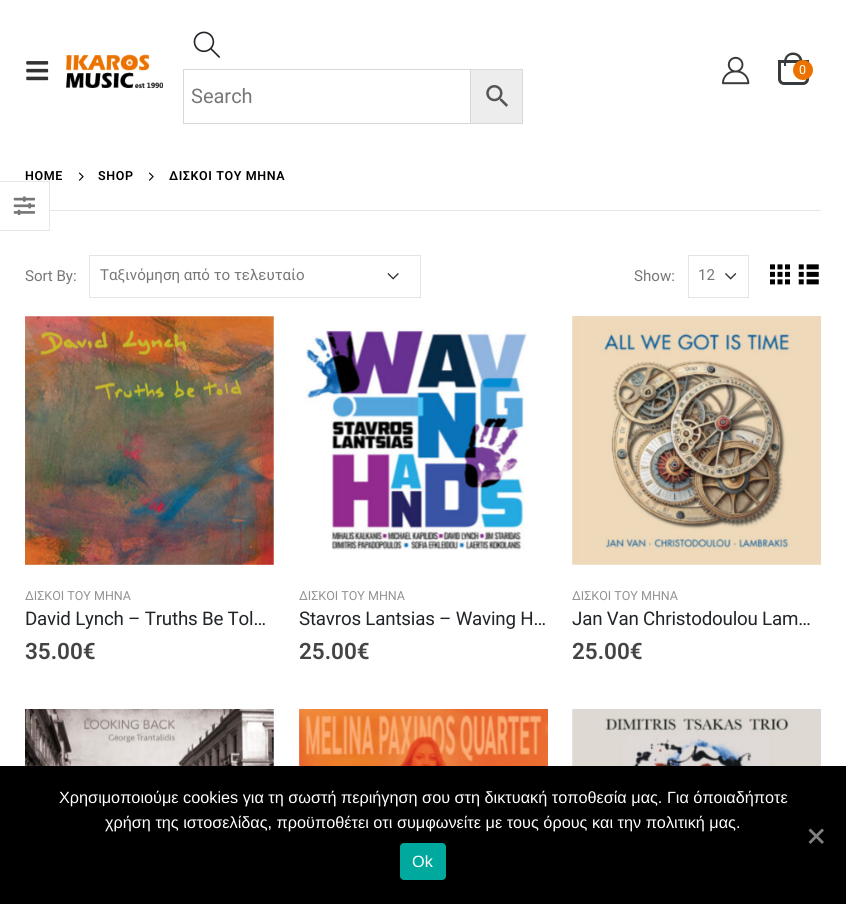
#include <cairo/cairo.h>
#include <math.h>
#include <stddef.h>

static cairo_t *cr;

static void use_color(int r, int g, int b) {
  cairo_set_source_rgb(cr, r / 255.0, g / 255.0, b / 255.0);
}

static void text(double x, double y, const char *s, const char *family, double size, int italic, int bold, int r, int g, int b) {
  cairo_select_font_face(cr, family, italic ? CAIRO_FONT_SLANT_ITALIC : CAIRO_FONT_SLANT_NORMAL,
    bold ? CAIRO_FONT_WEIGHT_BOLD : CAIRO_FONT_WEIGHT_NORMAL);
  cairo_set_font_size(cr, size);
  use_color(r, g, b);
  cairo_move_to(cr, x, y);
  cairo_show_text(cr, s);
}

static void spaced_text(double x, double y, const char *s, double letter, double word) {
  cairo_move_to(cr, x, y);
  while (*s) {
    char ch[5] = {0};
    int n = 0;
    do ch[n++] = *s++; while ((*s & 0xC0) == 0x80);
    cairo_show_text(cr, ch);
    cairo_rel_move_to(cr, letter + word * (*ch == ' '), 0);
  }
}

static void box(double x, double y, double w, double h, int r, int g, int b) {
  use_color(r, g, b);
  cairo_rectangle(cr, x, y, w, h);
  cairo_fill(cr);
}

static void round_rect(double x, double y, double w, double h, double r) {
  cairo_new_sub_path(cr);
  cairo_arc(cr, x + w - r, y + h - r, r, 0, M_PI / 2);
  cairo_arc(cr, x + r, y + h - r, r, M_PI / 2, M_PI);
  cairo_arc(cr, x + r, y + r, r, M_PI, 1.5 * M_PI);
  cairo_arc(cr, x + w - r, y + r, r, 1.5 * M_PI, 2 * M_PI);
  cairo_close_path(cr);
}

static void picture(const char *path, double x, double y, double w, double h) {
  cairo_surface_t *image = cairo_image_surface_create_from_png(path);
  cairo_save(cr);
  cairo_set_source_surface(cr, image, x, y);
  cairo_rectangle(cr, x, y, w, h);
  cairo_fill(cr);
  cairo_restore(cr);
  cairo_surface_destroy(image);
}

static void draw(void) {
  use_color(255, 255, 255);
  cairo_paint(cr);
  picture("img_01.png", 722, 56, 28, 29);
  cairo_new_path(cr);
  cairo_move_to(cr, 779.5, 61.5);
  cairo_line_to(cr, 807.5, 61.5);
  cairo_line_to(cr, 807.5, 79);
  cairo_curve_to(cr, 807.5, 81.5, 805.5, 83.5, 803, 83.5);
  cairo_line_to(cr, 784, 83.5);
  cairo_curve_to(cr, 781.5, 83.5, 779.5, 81.5, 779.5, 79);
  cairo_close_path(cr);
  use_color(56, 59, 62);
  cairo_set_line_width(cr, 3);
  cairo_stroke(cr);
  cairo_set_fill_rule(cr, CAIRO_FILL_RULE_EVEN_ODD);
  cairo_new_path(cr);
  cairo_move_to(cr, 793, 52.5);
  cairo_curve_to(cr, 798.5, 52.5, 802.5, 56.5, 802.5, 62);
  cairo_line_to(cr, 802.5, 66);
  cairo_line_to(cr, 784, 66);
  cairo_line_to(cr, 784, 62);
  cairo_curve_to(cr, 784, 56.5, 788, 52.5, 793, 52.5);
  cairo_close_path(cr);
  cairo_move_to(cr, 793, 55);
  cairo_curve_to(cr, 800, 55, 800, 61.5, 800, 66);
  cairo_line_to(cr, 786, 66);
  cairo_curve_to(cr, 786, 61.5, 786, 55, 793, 55);
  cairo_close_path(cr);
  cairo_fill(cr);
  use_color(236, 114, 0);
  cairo_arc(cr, 803, 70, 10, 0, 2 * M_PI);
  cairo_fill(cr);
  picture("img_02.png", 26, 61, 23, 20);
  picture("img_03.png", 65, 54, 98, 35);
  picture("img_04.png", 193, 31, 27, 27);
  use_color(237, 237, 237);
  cairo_rectangle(cr, 470.5, 69.5, 52, 54);
  cairo_fill_preserve(cr);
  use_color(216, 216, 216);
  cairo_set_line_width(cr, 1);
  cairo_stroke(cr);
  cairo_rectangle(cr, 183.5, 69.5, 287, 54);
  cairo_stroke(cr);
  picture("img_05.png", 486, 85, 22, 22);
  box(50, 210, 771, 1, 231, 231, 231);
  picture("img_06.png", 78, 172, 6, 9);
  picture("img_06.png", 148, 172, 6, 9);
  use_color(232, 232, 232);
  cairo_set_fill_rule(cr, CAIRO_FILL_RULE_WINDING);
  cairo_new_path(cr);
  cairo_move_to(cr, 0, 181);
  cairo_line_to(cr, 50, 181);
  cairo_line_to(cr, 49, 182);
  cairo_line_to(cr, 0, 182);
  cairo_close_path(cr);
  cairo_fill(cr);
  cairo_set_source_rgba(cr, 0, 0, 0, 0.09);
  cairo_new_path(cr);
  cairo_move_to(cr, 50, 181);
  cairo_line_to(cr, 50, 231);
  cairo_line_to(cr, 49, 230);
  cairo_line_to(cr, 49, 182);
  cairo_close_path(cr);
  cairo_fill(cr);
  cairo_new_path(cr);
  cairo_move_to(cr, 50, 231);
  cairo_line_to(cr, 0, 231);
  cairo_line_to(cr, 0, 230);
  cairo_line_to(cr, 49, 230);
  cairo_close_path(cr);
  cairo_fill(cr);
  picture("img_07.png", 13, 196, 22, 20);
  picture("img_08.png", 387, 273, 12, 7);
  cairo_rectangle(cr, 89.5, 255.5, 331, 42);
  use_color(228, 228, 228);
  cairo_stroke(cr);
  picture("img_09.png", 725, 273, 12, 7);
  cairo_rectangle(cr, 688.5, 255.5, 60, 42);
  cairo_stroke(cr);
  picture("img_10.png", 770, 264, 20, 21);
  picture("img_11.png", 798, 264, 21, 21);
  picture("img_12.png", 25, 316, 249, 249);
  picture("img_13.png", 305, 329, 223, 221);
  picture("img_14.png", 572, 316, 249, 249);
  picture("img_15.png", 25, 709, 249, 57);
  picture("img_16.png", 299, 709, 249, 57);
  picture("img_17.png", 572, 709, 249, 57);
  box(0, 766, 846, 138, 0, 0, 0);
  use_color(128, 128, 128);
  cairo_new_path(cr);
  cairo_move_to(cr, 822, 828.5);
  cairo_line_to(cr, 824, 830.5);
  cairo_line_to(cr, 810.5, 844);
  cairo_line_to(cr, 808.5, 842);
  cairo_close_path(cr);
  cairo_fill(cr);
  cairo_new_path(cr);
  cairo_move_to(cr, 808.5, 830.5);
  cairo_line_to(cr, 810.5, 828.5);
  cairo_line_to(cr, 824, 842);
  cairo_line_to(cr, 822, 844);
  cairo_close_path(cr);
  cairo_fill(cr);
  use_color(0, 169, 157);
  round_rect(400, 843, 46, 37, 4);
  cairo_fill(cr);
  text(799, 74, "0", "Roboto", 12.5, 0, 0, 255, 255, 255);
  text(191, 103, "Search", "Roboto", 20, 0, 0, 119, 119, 119);
  cairo_select_font_face(cr, "Roboto SemiBold", CAIRO_FONT_SLANT_NORMAL, CAIRO_FONT_WEIGHT_NORMAL);
  cairo_set_font_size(cr, 12.5);
  use_color(0, 0, 0);
  spaced_text(25, 180, "HOME", 0.6, 0);
  spaced_text(98, 180, "SHOP", 0.6, 0);
  spaced_text(169, 180, "ΔΙΣΚΟΙ ΤΟΥ ΜΗΝΑ", 0.6, 0);
  text(25, 281, "Sort By:", "Roboto", 15.1, 0, 0, 119, 119, 119);
  text(100, 280, "Ταξινόμηση από το τελευταίο", "Roboto", 15.1, 0, 0, 119, 119, 119);
  text(634, 281, "Show:", "Roboto", 15.1, 0, 0, 119, 119, 119);
  text(698, 280, "12", "Roboto", 15.1, 0, 0, 119, 119, 119);
  text(25, 600, "ΔΙΣΚΟΙ ΤΟΥ ΜΗΝΑ", "Roboto", 12.5, 0, 0, 146, 146, 146);
  cairo_set_font_size(cr, 18.75);
  use_color(33, 37, 41);
  spaced_text(25, 625, "David Lynch – Truths Be Tol…", -0.2, 0);
  text(25, 659, "35.00€", "Roboto SemiBold", 22.5, 0, 0, 68, 68, 68);
  text(299, 600, "ΔΙΣΚΟΙ ΤΟΥ ΜΗΝΑ", "Roboto", 12.5, 0, 0, 146, 146, 146);
  cairo_set_font_size(cr, 18.75);
  use_color(33, 37, 41);
  spaced_text(299, 625, "Stavros Lantsias – Waving H…", -0.2, 0);
  text(299, 659, "25.00€", "Roboto SemiBold", 22.5, 0, 0, 68, 68, 68);
  text(572, 600, "ΔΙΣΚΟΙ ΤΟΥ ΜΗΝΑ", "Roboto", 12.5, 0, 0, 146, 146, 146);
  cairo_set_font_size(cr, 18.75);
  use_color(33, 37, 41);
  spaced_text(572, 625, "Jan Van Christodoulou Lam…", -0.2, 0);
  text(572, 659, "25.00€", "Roboto SemiBold", 22.5, 0, 0, 68, 68, 68);
  text(59, 803, "Χρησιμοποιούμε cookies για τη σωστή περιήγηση σου στη δικτυακή τοποθεσία μας. Για όποιαδήποτε", "Liberation Sans", 16.25, 0, 0, 255, 255, 255);
  text(105, 828, "χρήση της ιστοσελίδας, προϋποθέτει οτι συμφωνείτε με τους όρους και την πολιτική μας.", "Liberation Sans", 16.25, 0, 0, 255, 255, 255);
  text(412, 867, "Ok", "Liberation Sans", 16.25, 0, 0, 255, 255, 255);
}

int main(void) {
  cairo_surface_t *surface = cairo_image_surface_create(CAIRO_FORMAT_RGB24, 846, 904);
  cr = cairo_create(surface);
  cairo_font_options_t *options = cairo_font_options_create();
  cairo_font_options_set_hint_metrics(options, CAIRO_HINT_METRICS_OFF);
  cairo_font_options_set_hint_style(options, CAIRO_HINT_STYLE_NONE);
  cairo_set_font_options(cr, options);
  cairo_set_miter_limit(cr, 4);
  draw();
  cairo_surface_write_to_png(surface, "out.png");
  cairo_font_options_destroy(options);
  cairo_destroy(cr);
  cairo_surface_destroy(surface);
  return 0;
}
